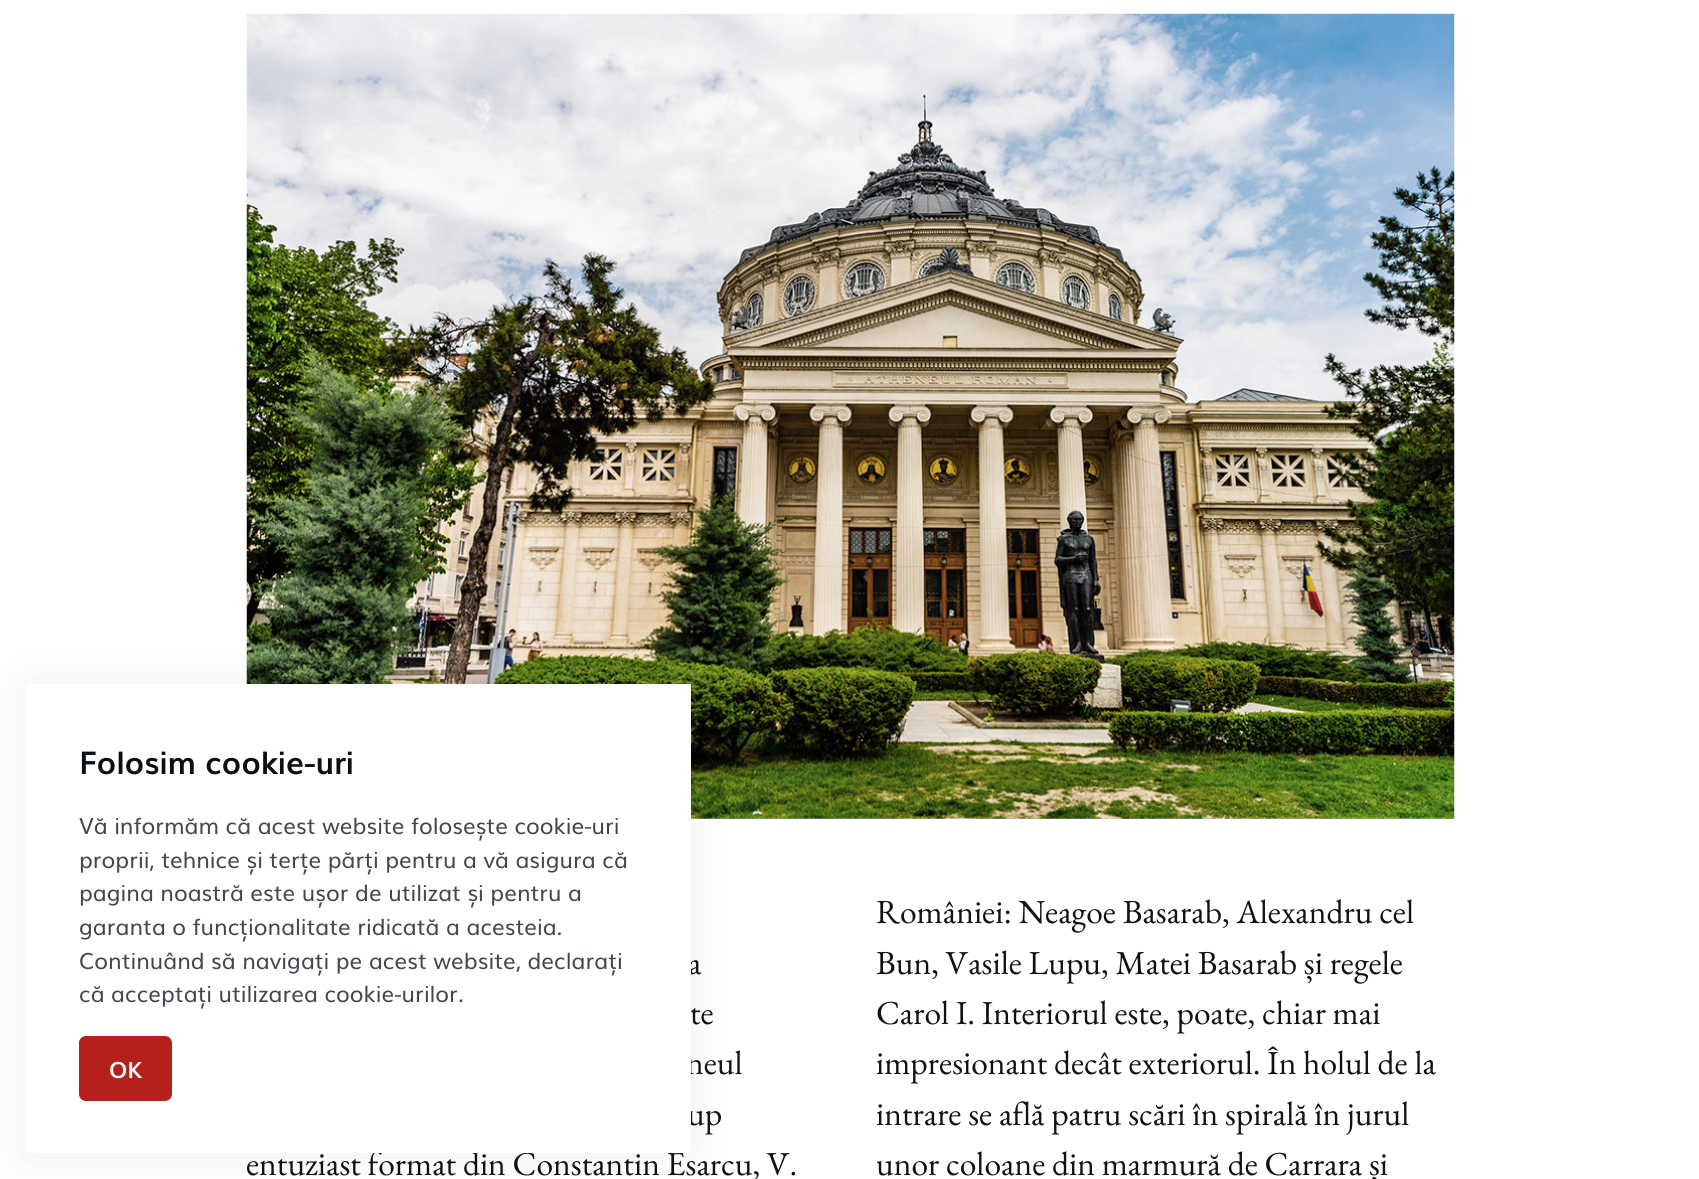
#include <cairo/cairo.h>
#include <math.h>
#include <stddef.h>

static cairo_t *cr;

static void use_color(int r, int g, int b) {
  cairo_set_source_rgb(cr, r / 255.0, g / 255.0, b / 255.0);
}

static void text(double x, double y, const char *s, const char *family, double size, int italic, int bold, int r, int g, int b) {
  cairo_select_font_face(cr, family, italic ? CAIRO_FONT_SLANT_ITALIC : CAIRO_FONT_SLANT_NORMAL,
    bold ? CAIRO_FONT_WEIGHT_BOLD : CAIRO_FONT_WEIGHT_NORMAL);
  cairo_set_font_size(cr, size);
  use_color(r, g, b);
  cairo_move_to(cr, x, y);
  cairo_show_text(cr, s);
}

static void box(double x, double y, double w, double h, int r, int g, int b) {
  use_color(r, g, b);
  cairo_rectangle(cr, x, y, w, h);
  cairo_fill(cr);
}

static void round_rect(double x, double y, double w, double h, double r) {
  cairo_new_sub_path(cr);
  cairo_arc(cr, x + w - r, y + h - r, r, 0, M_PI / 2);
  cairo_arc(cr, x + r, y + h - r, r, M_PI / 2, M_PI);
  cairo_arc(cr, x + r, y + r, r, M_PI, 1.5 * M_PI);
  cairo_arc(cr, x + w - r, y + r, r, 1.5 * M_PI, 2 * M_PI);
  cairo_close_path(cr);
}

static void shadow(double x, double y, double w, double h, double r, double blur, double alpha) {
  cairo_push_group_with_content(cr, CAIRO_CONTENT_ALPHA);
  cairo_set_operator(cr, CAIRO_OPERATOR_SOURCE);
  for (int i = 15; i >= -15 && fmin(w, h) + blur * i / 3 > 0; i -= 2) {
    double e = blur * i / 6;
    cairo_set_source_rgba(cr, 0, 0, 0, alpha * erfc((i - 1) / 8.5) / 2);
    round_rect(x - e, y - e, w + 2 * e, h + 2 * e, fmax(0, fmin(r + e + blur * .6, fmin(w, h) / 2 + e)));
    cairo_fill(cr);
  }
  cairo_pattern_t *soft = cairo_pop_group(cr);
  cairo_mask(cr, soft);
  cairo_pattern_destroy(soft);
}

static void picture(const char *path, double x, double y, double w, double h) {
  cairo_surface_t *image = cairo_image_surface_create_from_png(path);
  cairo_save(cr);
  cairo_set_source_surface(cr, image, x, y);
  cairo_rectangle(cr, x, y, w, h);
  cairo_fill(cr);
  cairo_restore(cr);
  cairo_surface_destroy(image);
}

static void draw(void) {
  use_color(255, 255, 255);
  cairo_paint(cr);
  picture("img_01.png", 246, 13, 1209, 806);
  use_color(0, 0, 0);
  shadow(26, 686, 665, 469, 0, 23, 0.06);
  text(688, 974, "a", "EB Garamond", 33.6, 0, 0, 17, 17, 17);
  text(690, 1024, "te", "EB Garamond", 33.6, 0, 0, 17, 17, 17);
  text(686, 1074, "neul", "EB Garamond", 33.6, 0, 0, 17, 17, 17);
  text(687, 1125, "up", "EB Garamond", 33.6, 0, 0, 17, 17, 17);
  text(246, 1175, "entuziast format din Constantin Esarcu, V.", "EB Garamond", 33.6, 0, 0, 17, 17, 17);
  box(26, 684, 665, 469, 255, 255, 255);
  use_color(181, 32, 29);
  round_rect(80, 1037, 91, 63, 6);
  cairo_fill_preserve(cr);
  cairo_stroke(cr);
  text(109, 1078, "OK", "Muli", 22.4, 0, 1, 255, 255, 255);
  text(79, 1002, "că acceptați utilizarea cookie-urilor.", "Muli", 22.4, 0, 0, 65, 71, 81);
  text(79, 969, "Continuând să navigați pe acest website, declarați", "Muli", 22.4, 0, 0, 65, 71, 81);
  text(79, 935, "garanta o funcționalitate ridicată a acesteia.", "Muli", 22.4, 0, 0, 65, 71, 81);
  text(79, 901, "pagina noastră este ușor de utilizat și pentru a", "Muli", 22.4, 0, 0, 65, 71, 81);
  text(79, 868, "proprii, tehnice și terțe părți pentru a vă asigura că", "Muli", 22.4, 0, 0, 65, 71, 81);
  text(79, 834, "Vă informăm că acest website folosește cookie-uri", "Muli", 22.4, 0, 0, 65, 71, 81);
  text(79, 774, "Folosim cookie-uri", "Muli", 31.5, 0, 1, 11, 16, 22);
  text(876, 923, "României: Neagoe Basarab, Alexandru cel", "EB Garamond", 33.6, 0, 0, 17, 17, 17);
  text(876, 974, "Bun, Vasile Lupu, Matei Basarab și regele", "EB Garamond", 33.6, 0, 0, 17, 17, 17);
  text(876, 1024, "Carol I. Interiorul este, poate, chiar mai", "EB Garamond", 33.6, 0, 0, 17, 17, 17);
  text(876, 1074, "impresionant decât exteriorul. În holul de la", "EB Garamond", 33.6, 0, 0, 17, 17, 17);
  text(876, 1125, "intrare se află patru scări în spirală în jurul", "EB Garamond", 33.6, 0, 0, 17, 17, 17);
  text(876, 1175, "unor coloane din marmură de Carrara și", "EB Garamond", 33.6, 0, 0, 17, 17, 17);
}

int main(void) {
  cairo_surface_t *surface = cairo_image_surface_create(CAIRO_FORMAT_RGB24, 1699, 1179);
  cr = cairo_create(surface);
  cairo_font_options_t *options = cairo_font_options_create();
  cairo_font_options_set_hint_metrics(options, CAIRO_HINT_METRICS_OFF);
  cairo_font_options_set_hint_style(options, CAIRO_HINT_STYLE_NONE);
  cairo_set_font_options(cr, options);
  cairo_set_miter_limit(cr, 4);
  draw();
  cairo_surface_write_to_png(surface, "out.png");
  cairo_font_options_destroy(options);
  cairo_destroy(cr);
  cairo_surface_destroy(surface);
  return 0;
}
